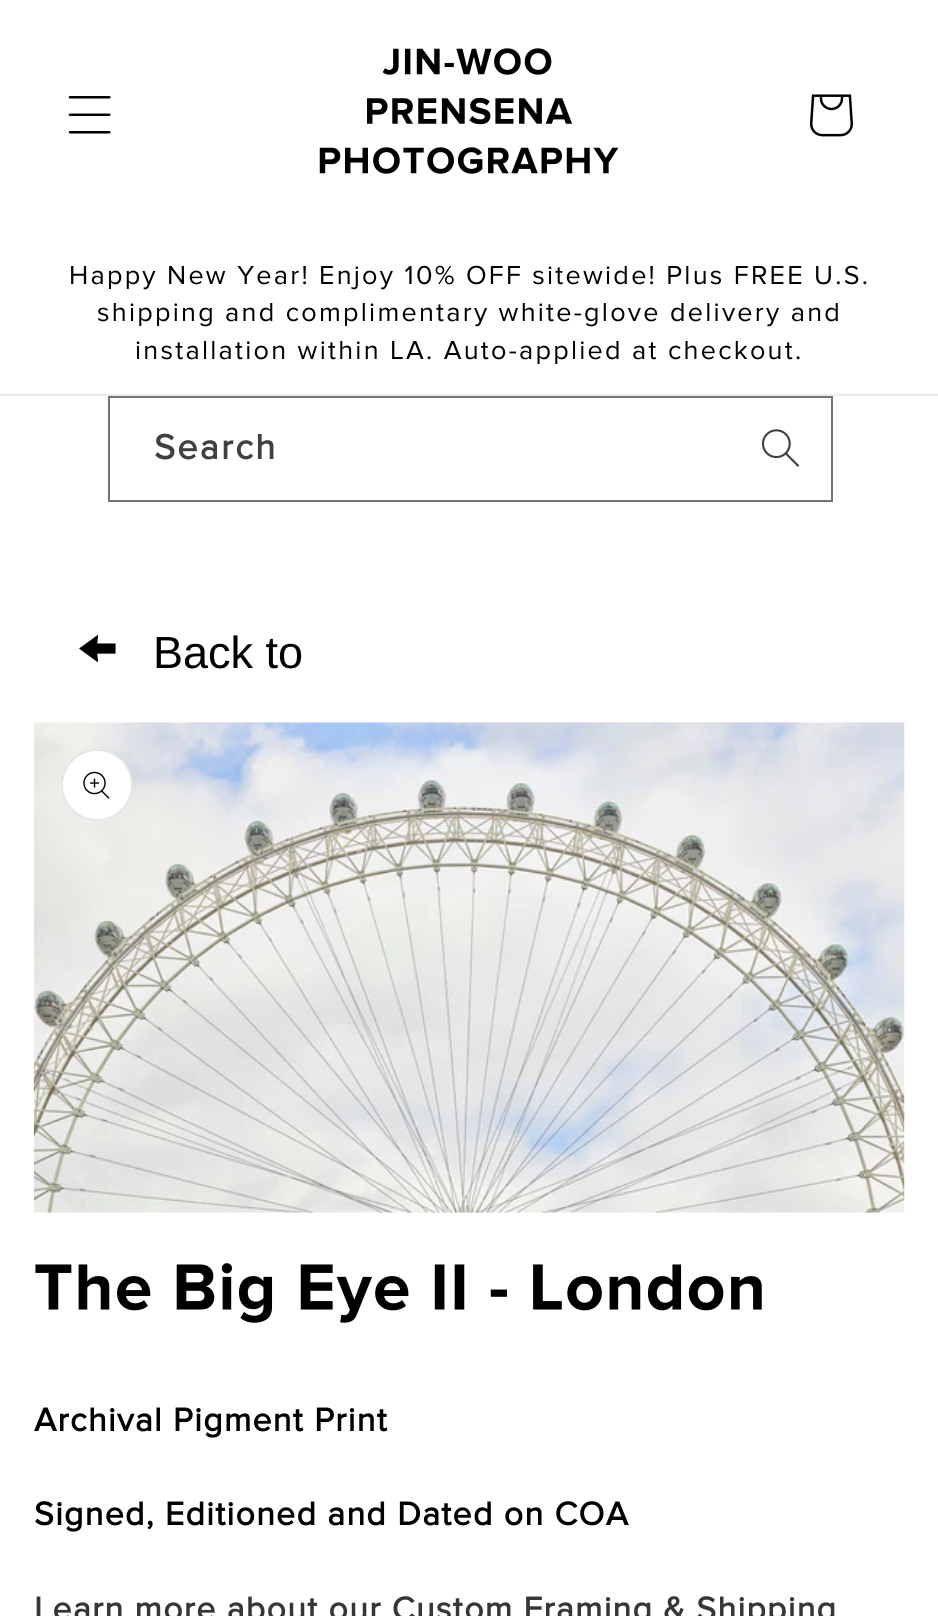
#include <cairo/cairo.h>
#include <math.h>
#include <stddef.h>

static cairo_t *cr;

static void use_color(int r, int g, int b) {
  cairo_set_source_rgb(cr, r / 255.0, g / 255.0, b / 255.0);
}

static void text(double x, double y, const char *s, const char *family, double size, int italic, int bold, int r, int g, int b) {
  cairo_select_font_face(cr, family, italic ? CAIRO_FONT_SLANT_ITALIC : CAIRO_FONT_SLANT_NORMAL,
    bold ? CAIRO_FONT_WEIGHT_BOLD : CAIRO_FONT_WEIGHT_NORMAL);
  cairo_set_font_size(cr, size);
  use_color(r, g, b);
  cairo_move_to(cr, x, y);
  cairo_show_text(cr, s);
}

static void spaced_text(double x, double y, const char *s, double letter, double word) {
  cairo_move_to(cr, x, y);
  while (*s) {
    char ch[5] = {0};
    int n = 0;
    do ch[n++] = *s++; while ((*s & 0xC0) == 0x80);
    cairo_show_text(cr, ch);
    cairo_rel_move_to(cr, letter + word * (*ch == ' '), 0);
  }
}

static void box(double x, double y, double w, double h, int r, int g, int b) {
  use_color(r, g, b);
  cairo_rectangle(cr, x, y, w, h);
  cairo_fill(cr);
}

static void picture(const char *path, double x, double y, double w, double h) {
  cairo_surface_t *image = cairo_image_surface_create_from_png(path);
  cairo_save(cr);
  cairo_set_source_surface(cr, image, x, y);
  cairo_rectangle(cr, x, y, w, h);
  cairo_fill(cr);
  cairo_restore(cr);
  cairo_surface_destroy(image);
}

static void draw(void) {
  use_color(255, 255, 255);
  cairo_paint(cr);
  picture("img_01.png", 68, 96, 43, 38);
  picture("img_02.png", 382, 48, 170, 27);
  picture("img_03.png", 367, 97, 205, 28);
  picture("img_04.png", 319, 147, 300, 27);
  picture("img_05.png", 810, 94, 43, 43);
  box(0, 394, 938, 2, 235, 235, 235);
  picture("img_06.png", 761, 429, 38, 38);
  cairo_rectangle(cr, 109, 397, 723, 104);
  use_color(115, 115, 115);
  cairo_stroke(cr);
  picture("img_07.png", 33, 722, 872, 491);
  use_color(255, 255, 255);
  cairo_arc(cr, 97, 785, 36, 0, 2 * M_PI);
  cairo_fill(cr);
  cairo_arc(cr, 97, 785, 35, 0, 2 * M_PI);
  cairo_set_source_rgba(cr, 0, 0, 0, 0.1);
  cairo_stroke(cr);
  picture("img_08.png", 83, 771, 27, 28);
  picture("img_09.png", 35, 1263, 727, 60);
  cairo_select_font_face(cr, "Proxima Nova", CAIRO_FONT_SLANT_NORMAL, CAIRO_FONT_WEIGHT_NORMAL);
  cairo_set_font_size(cr, 27);
  use_color(0, 0, 0);
  spaced_text(69, 284, "Happy New Year! Enjoy 10% OFF sitewide! Plus FREE U.S.", 2.25, 0);
  spaced_text(97, 321, "shipping and complimentary white-glove delivery and", 2.25, 0);
  spaced_text(135, 359, "installation within LA. Auto-applied at checkout.", 2.25, 0);
  cairo_select_font_face(cr, "Proxima Nova", CAIRO_FONT_SLANT_NORMAL, CAIRO_FONT_WEIGHT_BOLD);
  cairo_set_font_size(cr, 36);
  use_color(64, 64, 64);
  spaced_text(154, 459, "Search", 2.25, 0);
  text(79, 668, "←", "Proxima Nova", 68, 0, 0, 0, 0, 0);
  text(153, 668, "Back to", "Liberation Sans", 45, 0, 0, 0, 0, 0);
  cairo_select_font_face(cr, "Proxima Nova", CAIRO_FONT_SLANT_NORMAL, CAIRO_FONT_WEIGHT_BOLD);
  cairo_set_font_size(cr, 33.75);
  spaced_text(34, 1431, "Archival Pigment Print", 1.35, 0);
  spaced_text(34, 1525, "Signed, Editioned and Dated on COA", 1.35, 0);
  use_color(54, 54, 54);
  spaced_text(34, 1620, "Learn more about our Custom Framing & Shipping", 1.35, 0);
}

int main(void) {
  cairo_surface_t *surface = cairo_image_surface_create(CAIRO_FORMAT_RGB24, 938, 1616);
  cr = cairo_create(surface);
  cairo_font_options_t *options = cairo_font_options_create();
  cairo_font_options_set_hint_metrics(options, CAIRO_HINT_METRICS_OFF);
  cairo_font_options_set_hint_style(options, CAIRO_HINT_STYLE_NONE);
  cairo_set_font_options(cr, options);
  cairo_set_miter_limit(cr, 4);
  draw();
  cairo_surface_write_to_png(surface, "out.png");
  cairo_font_options_destroy(options);
  cairo_destroy(cr);
  cairo_surface_destroy(surface);
  return 0;
}
